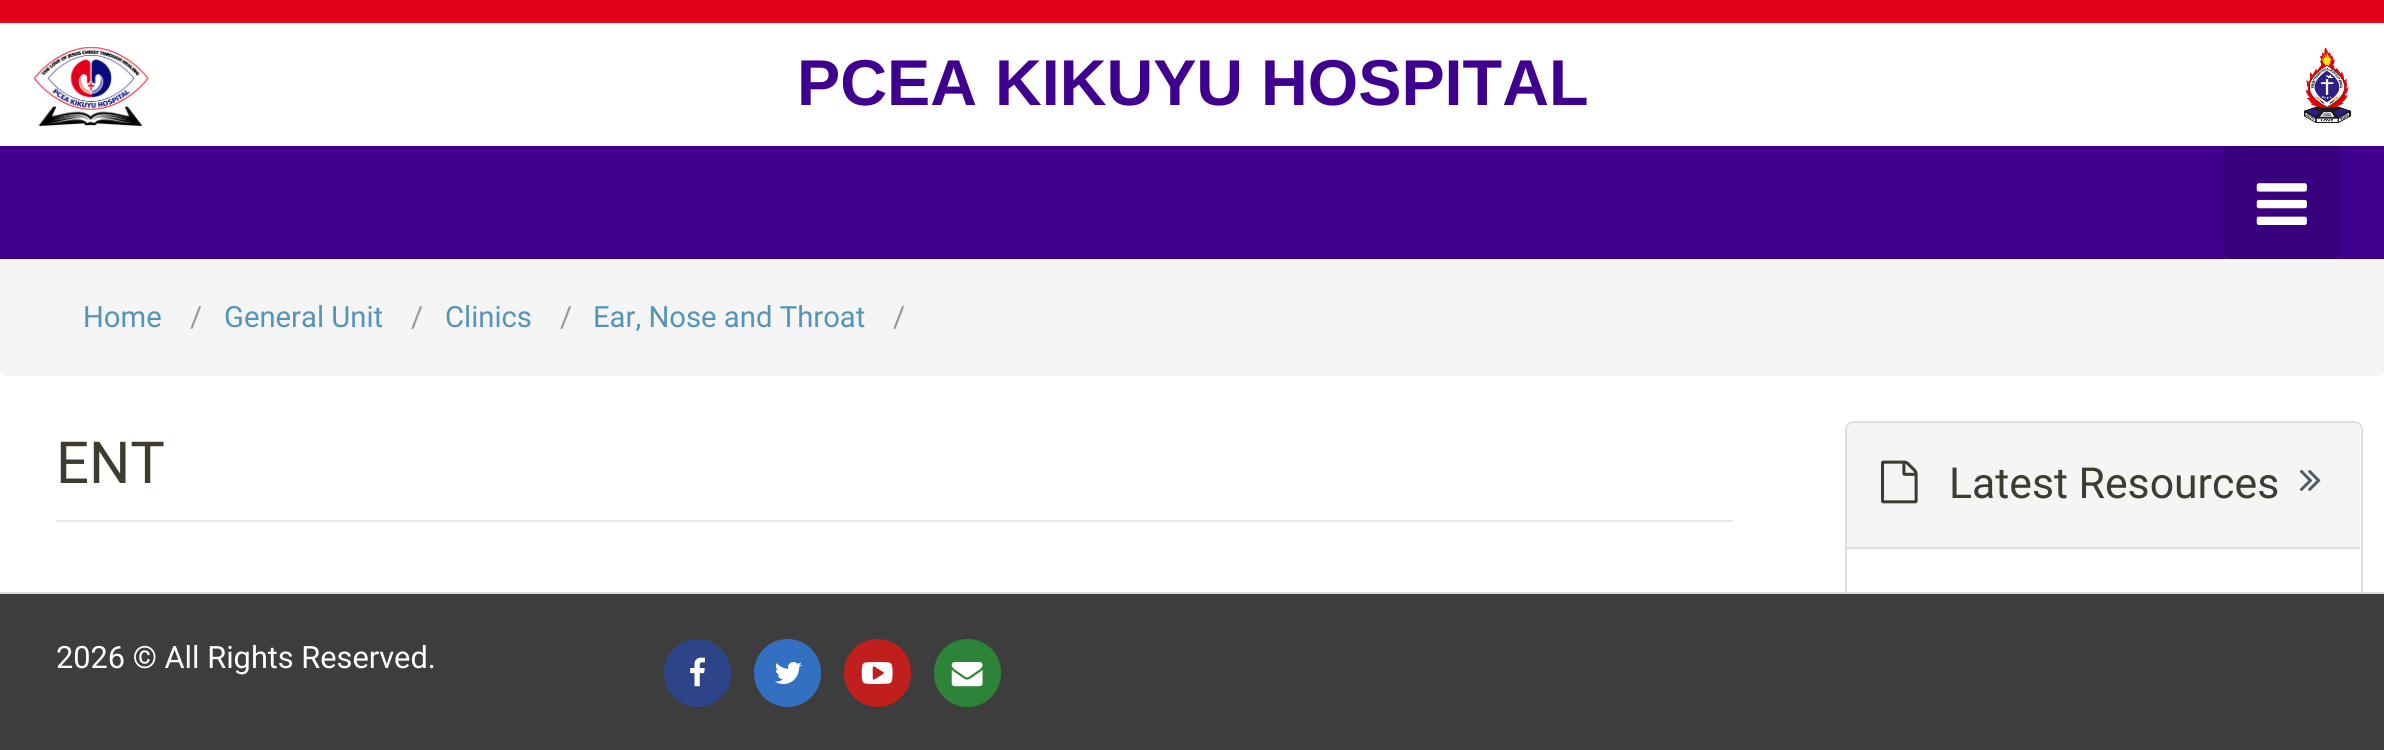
#include <cairo/cairo.h>
#include <math.h>
#include <stddef.h>

static cairo_t *cr;

static void use_color(int r, int g, int b) {
  cairo_set_source_rgb(cr, r / 255.0, g / 255.0, b / 255.0);
}

static void text(double x, double y, const char *s, const char *family, double size, int italic, int bold, int r, int g, int b) {
  cairo_select_font_face(cr, family, italic ? CAIRO_FONT_SLANT_ITALIC : CAIRO_FONT_SLANT_NORMAL,
    bold ? CAIRO_FONT_WEIGHT_BOLD : CAIRO_FONT_WEIGHT_NORMAL);
  cairo_set_font_size(cr, size);
  use_color(r, g, b);
  cairo_move_to(cr, x, y);
  cairo_show_text(cr, s);
}

static void box(double x, double y, double w, double h, int r, int g, int b) {
  use_color(r, g, b);
  cairo_rectangle(cr, x, y, w, h);
  cairo_fill(cr);
}

static void round_rect(double x, double y, double w, double h, double r) {
  cairo_new_sub_path(cr);
  cairo_arc(cr, x + w - r, y + h - r, r, 0, M_PI / 2);
  cairo_arc(cr, x + r, y + h - r, r, M_PI / 2, M_PI);
  cairo_arc(cr, x + r, y + r, r, M_PI, 1.5 * M_PI);
  cairo_arc(cr, x + w - r, y + r, r, 1.5 * M_PI, 2 * M_PI);
  cairo_close_path(cr);
}

static void picture(const char *path, double x, double y, double w, double h) {
  cairo_surface_t *image = cairo_image_surface_create_from_png(path);
  cairo_save(cr);
  cairo_set_source_surface(cr, image, x, y);
  cairo_rectangle(cr, x, y, w, h);
  cairo_fill(cr);
  cairo_restore(cr);
  cairo_surface_destroy(image);
}

static void draw(void) {
  use_color(255, 255, 255);
  cairo_paint(cr);
  box(0, 0, 2384, 23, 226, 0, 26);
  picture("img_01.png", 33, 47, 116, 79);
  picture("img_02.png", 2304, 47, 48, 77);
  box(0, 146, 2384, 113, 63, 0, 142);
  cairo_set_source_rgba(cr, 1, 1, 1, 0.08);
  cairo_new_path(cr);
  cairo_move_to(cr, 2223, 252);
  cairo_curve_to(cr, 2223, 265, 2237, 261, 2247, 261);
  cairo_line_to(cr, 2316, 261);
  cairo_curve_to(cr, 2326, 261, 2340, 265, 2340, 252);
  cairo_curve_to(cr, 2340, 256, 2337, 259, 2333, 259);
  cairo_line_to(cr, 2230, 259);
  cairo_curve_to(cr, 2226, 259, 2223, 256, 2223, 252);
  cairo_close_path(cr);
  cairo_fill(cr);
  cairo_set_source_rgba(cr, 0, 0, 0, 0.12);
  round_rect(2223, 146, 117, 113, 7);
  cairo_fill(cr);
  cairo_set_source_rgba(cr, 0, 0, 0, 0.1);
  cairo_new_path(cr);
  cairo_move_to(cr, 2230, 148);
  cairo_line_to(cr, 2333, 148);
  cairo_curve_to(cr, 2337, 148, 2340, 152, 2340, 155);
  cairo_curve_to(cr, 2340, 142, 2326, 146, 2316, 146);
  cairo_line_to(cr, 2247, 146);
  cairo_curve_to(cr, 2237, 146, 2223, 142, 2223, 155);
  cairo_curve_to(cr, 2223, 152, 2226, 148, 2230, 148);
  cairo_close_path(cr);
  cairo_fill(cr);
  picture("img_03.png", 2256, 183, 51, 42);
  use_color(245, 245, 245);
  cairo_new_path(cr);
  cairo_move_to(cr, 0, 259);
  cairo_line_to(cr, 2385, 259);
  cairo_line_to(cr, 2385, 369);
  cairo_curve_to(cr, 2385, 373, 2382, 376, 2378, 376);
  cairo_line_to(cr, 7, 376);
  cairo_curve_to(cr, 3, 376, 0, 373, 0, 369);
  cairo_close_path(cr);
  cairo_fill(cr);
  box(56, 520, 1677, 2, 231, 231, 231);
  round_rect(1846, 422, 516, 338, 8);
  use_color(221, 221, 221);
  cairo_stroke(cr);
  use_color(245, 245, 245);
  cairo_new_path(cr);
  cairo_move_to(cr, 1854, 423);
  cairo_line_to(cr, 2353, 423);
  cairo_curve_to(cr, 2357, 423, 2360, 426, 2360, 430);
  cairo_line_to(cr, 2360, 549);
  cairo_line_to(cr, 1847, 549);
  cairo_line_to(cr, 1847, 430);
  cairo_curve_to(cr, 1847, 426, 1850, 423, 1854, 423);
  cairo_close_path(cr);
  cairo_fill(cr);
  box(1847, 547, 513, 2, 221, 221, 221);
  picture("img_04.png", 1881, 460, 37, 44);
  picture("img_05.png", 2299, 469, 22, 22);
  box(0, 594, 2384, 156, 61, 61, 61);
  box(0, 592, 2384, 2, 221, 221, 221);
  use_color(45, 68, 137);
  round_rect(664, 639, 67, 68, 33.5);
  cairo_fill(cr);
  picture("img_06.png", 690, 657, 15, 30);
  use_color(51, 112, 193);
  round_rect(754, 639, 67, 68, 33.5);
  cairo_fill(cr);
  picture("img_07.png", 775, 662, 27, 22);
  use_color(193, 31, 30);
  round_rect(844, 639, 67, 68, 33.5);
  cairo_fill(cr);
  picture("img_08.png", 861, 662, 32, 22);
  use_color(45, 132, 57);
  round_rect(934, 639, 67, 68, 33.5);
  cairo_fill(cr);
  picture("img_09.png", 951, 662, 32, 25);
  text(797, 105, "PCEA KIKUYU HOSPITAL", "Liberation Sans", 64.75, 0, 1, 63, 0, 142);
  text(83, 327, "Home", "Roboto", 29.25, 0, 0, 85, 148, 183);
  text(190, 327, "/", "Roboto", 29.25, 0, 0, 153, 153, 153);
  text(224, 327, "General Unit", "Roboto", 29.25, 0, 0, 85, 148, 183);
  text(411, 327, "/", "Roboto", 29.25, 0, 0, 153, 153, 153);
  text(445, 327, "Clinics", "Roboto", 29.25, 0, 0, 85, 148, 183);
  text(560, 327, "/", "Roboto", 29.25, 0, 0, 153, 153, 153);
  text(593, 327, "Ear, Nose and Throat", "Roboto", 29.25, 0, 0, 85, 148, 183);
  text(893, 327, "/", "Roboto", 29.25, 0, 0, 153, 153, 153);
  text(56, 483, "ENT", "Roboto", 58, 0, 0, 62, 60, 48);
  text(1949, 498, "Latest Resources", "Roboto", 42.75, 0, 0, 62, 60, 48);
  text(56, 668, "2026 © All Rights Reserved.", "Roboto", 30.75, 0, 0, 255, 255, 255);
}

int main(void) {
  cairo_surface_t *surface = cairo_image_surface_create(CAIRO_FORMAT_RGB24, 2384, 750);
  cr = cairo_create(surface);
  cairo_font_options_t *options = cairo_font_options_create();
  cairo_font_options_set_hint_metrics(options, CAIRO_HINT_METRICS_OFF);
  cairo_font_options_set_hint_style(options, CAIRO_HINT_STYLE_NONE);
  cairo_set_font_options(cr, options);
  cairo_set_miter_limit(cr, 4);
  draw();
  cairo_surface_write_to_png(surface, "out.png");
  cairo_font_options_destroy(options);
  cairo_destroy(cr);
  cairo_surface_destroy(surface);
  return 0;
}
